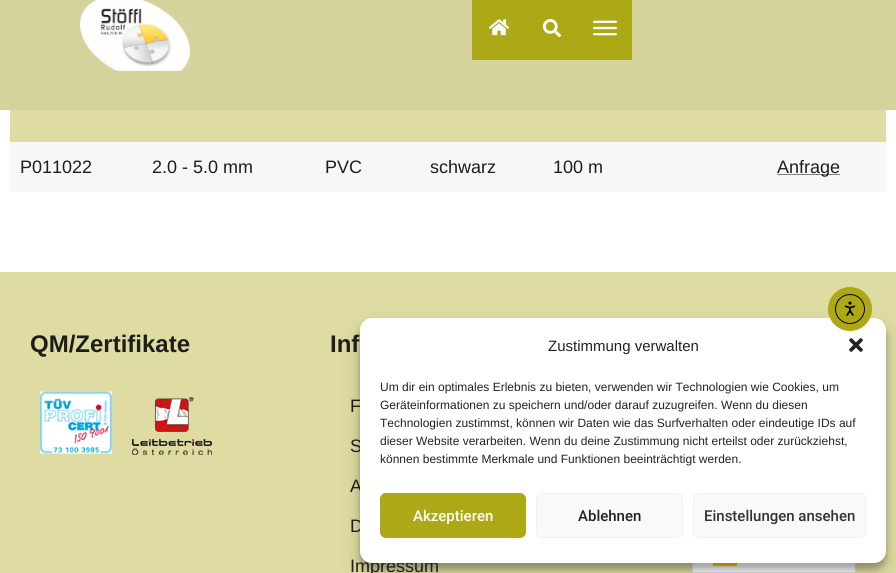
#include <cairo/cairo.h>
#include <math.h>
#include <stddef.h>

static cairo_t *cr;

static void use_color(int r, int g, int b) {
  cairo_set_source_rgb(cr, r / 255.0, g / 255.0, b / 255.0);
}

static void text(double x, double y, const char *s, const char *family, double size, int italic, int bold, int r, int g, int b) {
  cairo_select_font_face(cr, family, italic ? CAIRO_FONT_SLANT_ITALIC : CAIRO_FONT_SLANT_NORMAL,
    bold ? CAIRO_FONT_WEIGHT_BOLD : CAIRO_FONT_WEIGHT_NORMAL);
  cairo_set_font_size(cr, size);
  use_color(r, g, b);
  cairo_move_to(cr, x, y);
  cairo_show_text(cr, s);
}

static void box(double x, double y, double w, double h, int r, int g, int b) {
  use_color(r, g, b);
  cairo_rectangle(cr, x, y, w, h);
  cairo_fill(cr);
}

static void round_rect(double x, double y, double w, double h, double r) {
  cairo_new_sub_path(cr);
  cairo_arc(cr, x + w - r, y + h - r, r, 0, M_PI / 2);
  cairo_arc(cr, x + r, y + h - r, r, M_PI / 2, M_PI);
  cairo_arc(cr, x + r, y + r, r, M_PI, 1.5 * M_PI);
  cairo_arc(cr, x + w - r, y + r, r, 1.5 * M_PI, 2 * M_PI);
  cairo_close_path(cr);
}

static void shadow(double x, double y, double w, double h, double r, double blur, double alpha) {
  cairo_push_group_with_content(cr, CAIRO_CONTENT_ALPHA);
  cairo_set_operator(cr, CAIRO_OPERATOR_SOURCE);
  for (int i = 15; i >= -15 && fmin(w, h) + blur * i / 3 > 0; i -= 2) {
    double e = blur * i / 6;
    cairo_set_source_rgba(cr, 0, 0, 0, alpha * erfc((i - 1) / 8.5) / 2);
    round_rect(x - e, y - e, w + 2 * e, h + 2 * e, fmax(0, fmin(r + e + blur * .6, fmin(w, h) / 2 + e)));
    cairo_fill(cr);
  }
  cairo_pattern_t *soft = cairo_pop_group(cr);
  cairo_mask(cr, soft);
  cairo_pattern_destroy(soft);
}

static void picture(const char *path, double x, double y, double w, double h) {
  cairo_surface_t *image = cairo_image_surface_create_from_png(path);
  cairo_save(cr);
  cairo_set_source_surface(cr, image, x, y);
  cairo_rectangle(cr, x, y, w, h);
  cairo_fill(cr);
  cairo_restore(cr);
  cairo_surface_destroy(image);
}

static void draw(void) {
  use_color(255, 255, 255);
  cairo_paint(cr);
  box(0, 0, 896, 110, 213, 211, 156);
  picture("img_01.png", 80, 0, 110, 71);
  box(472, 0, 160, 60, 173, 168, 22);
  picture("img_02.png", 489, 19, 21, 17);
  picture("img_03.png", 542, 19, 19, 19);
  picture("img_04.png", 593, 20, 24, 16);
  box(10, 110, 876, 32, 222, 220, 162);
  box(10, 142, 876, 50, 247, 247, 247);
  box(777, 174, 63, 1, 128, 128, 128);
  box(0, 272, 896, 301, 222, 220, 162);
  picture("img_06.png", 40, 391, 72, 63);
  picture("img_07.png", 132, 397, 80, 58);
  box(693, 563, 162, 9, 255, 255, 255);
  cairo_rectangle(cr, 692.5, 534.5, 163, 38);
  use_color(224, 224, 224);
  cairo_set_line_width(cr, 1);
  cairo_stroke(cr);
  box(713, 563, 24, 3, 255, 204, 0);
  use_color(0, 0, 0);
  shadow(360, 324, 526, 245, 12, 3, 0.23);
  shadow(360, 328, 526, 245, 12, 10, 0.19);
  text(20, 173, "P011022", "Liberation Sans", 18, 0, 0, 29, 29, 27);
  text(152, 173, "2.0 - 5.0 mm", "Liberation Sans", 18, 0, 0, 29, 29, 27);
  text(325, 173, "PVC", "Liberation Sans", 18, 0, 0, 29, 29, 27);
  text(430, 173, "schwarz", "Liberation Sans", 18, 0, 0, 29, 29, 27);
  text(553, 173, "100 m", "Liberation Sans", 18, 0, 0, 29, 29, 27);
  text(777, 173, "Anfrage", "Liberation Sans", 18, 0, 0, 29, 29, 27);
  text(30, 352, "QM/Zertifikate", "Liberation Sans", 24, 0, 1, 29, 29, 27);
  text(330, 352, "Inf", "Liberation Sans", 24, 0, 1, 29, 29, 27);
  text(350, 412, "F", "Liberation Sans", 18, 0, 0, 29, 29, 27);
  text(350, 452, "S", "Liberation Sans", 18, 0, 0, 29, 29, 27);
  text(350, 492, "A", "Liberation Sans", 18, 0, 0, 29, 29, 27);
  text(350, 532, "D", "Liberation Sans", 18, 0, 0, 29, 29, 27);
  text(350, 572, "Impressum", "Liberation Sans", 18, 0, 0, 29, 29, 27);
  use_color(255, 255, 255);
  round_rect(360, 318, 526, 245, 12);
  cairo_fill(cr);
  use_color(173, 168, 21);
  cairo_arc(cr, 850, 309, 22, 0, 2 * M_PI);
  cairo_fill(cr);
  cairo_arc(cr, 850, 309, 14.5, 0, 2 * M_PI);
  use_color(0, 0, 0);
  cairo_stroke(cr);
  picture("img_05.png", 844, 301, 12, 15);
  text(548, 351, "Zustimmung verwalten", "Liberation Sans", 15, 0, 0, 34, 34, 34);
  picture("img_08.png", 849, 338, 14, 14);
  text(380, 391, "Um dir ein optimales Erlebnis zu bieten, verwenden wir Technologien wie Cookies, um", "Liberation Sans", 12, 0, 0, 34, 34, 34);
  text(380, 409, "Geräteinformationen zu speichern und/oder darauf zuzugreifen. Wenn du diesen", "Liberation Sans", 12, 0, 0, 34, 34, 34);
  text(380, 427, "Technologien zustimmst, können wir Daten wie das Surfverhalten oder eindeutige IDs auf", "Liberation Sans", 12, 0, 0, 34, 34, 34);
  text(380, 445, "dieser Website verarbeiten. Wenn du deine Zustimmung nicht erteilst oder zurückziehst,", "Liberation Sans", 12, 0, 0, 34, 34, 34);
  text(380, 463, "können bestimmte Merkmale und Funktionen beeinträchtigt werden.", "Liberation Sans", 12, 0, 0, 34, 34, 34);
  use_color(173, 168, 21);
  round_rect(380.5, 493.5, 145, 44, 5.5);
  cairo_fill_preserve(cr);
  cairo_stroke(cr);
  text(413, 521, "Akzeptieren", "Roboto Medium", 15, 0, 0, 255, 255, 255);
  use_color(249, 249, 249);
  round_rect(536.5, 493.5, 146, 44, 5.5);
  cairo_fill_preserve(cr);
  use_color(242, 242, 242);
  cairo_stroke(cr);
  text(578, 521, "Ablehnen", "Roboto Medium", 15, 0, 0, 34, 34, 34);
  use_color(249, 249, 249);
  round_rect(693.5, 493.5, 172, 44, 5.5);
  cairo_fill_preserve(cr);
  use_color(242, 242, 242);
  cairo_stroke(cr);
  text(704, 521, "Einstellungen ansehen", "Roboto Medium", 15, 0, 0, 51, 51, 51);
}

int main(void) {
  cairo_surface_t *surface = cairo_image_surface_create(CAIRO_FORMAT_RGB24, 896, 573);
  cr = cairo_create(surface);
  cairo_font_options_t *options = cairo_font_options_create();
  cairo_font_options_set_hint_metrics(options, CAIRO_HINT_METRICS_OFF);
  cairo_font_options_set_hint_style(options, CAIRO_HINT_STYLE_NONE);
  cairo_set_font_options(cr, options);
  cairo_set_miter_limit(cr, 4);
  draw();
  cairo_surface_write_to_png(surface, "out.png");
  cairo_font_options_destroy(options);
  cairo_destroy(cr);
  cairo_surface_destroy(surface);
  return 0;
}
